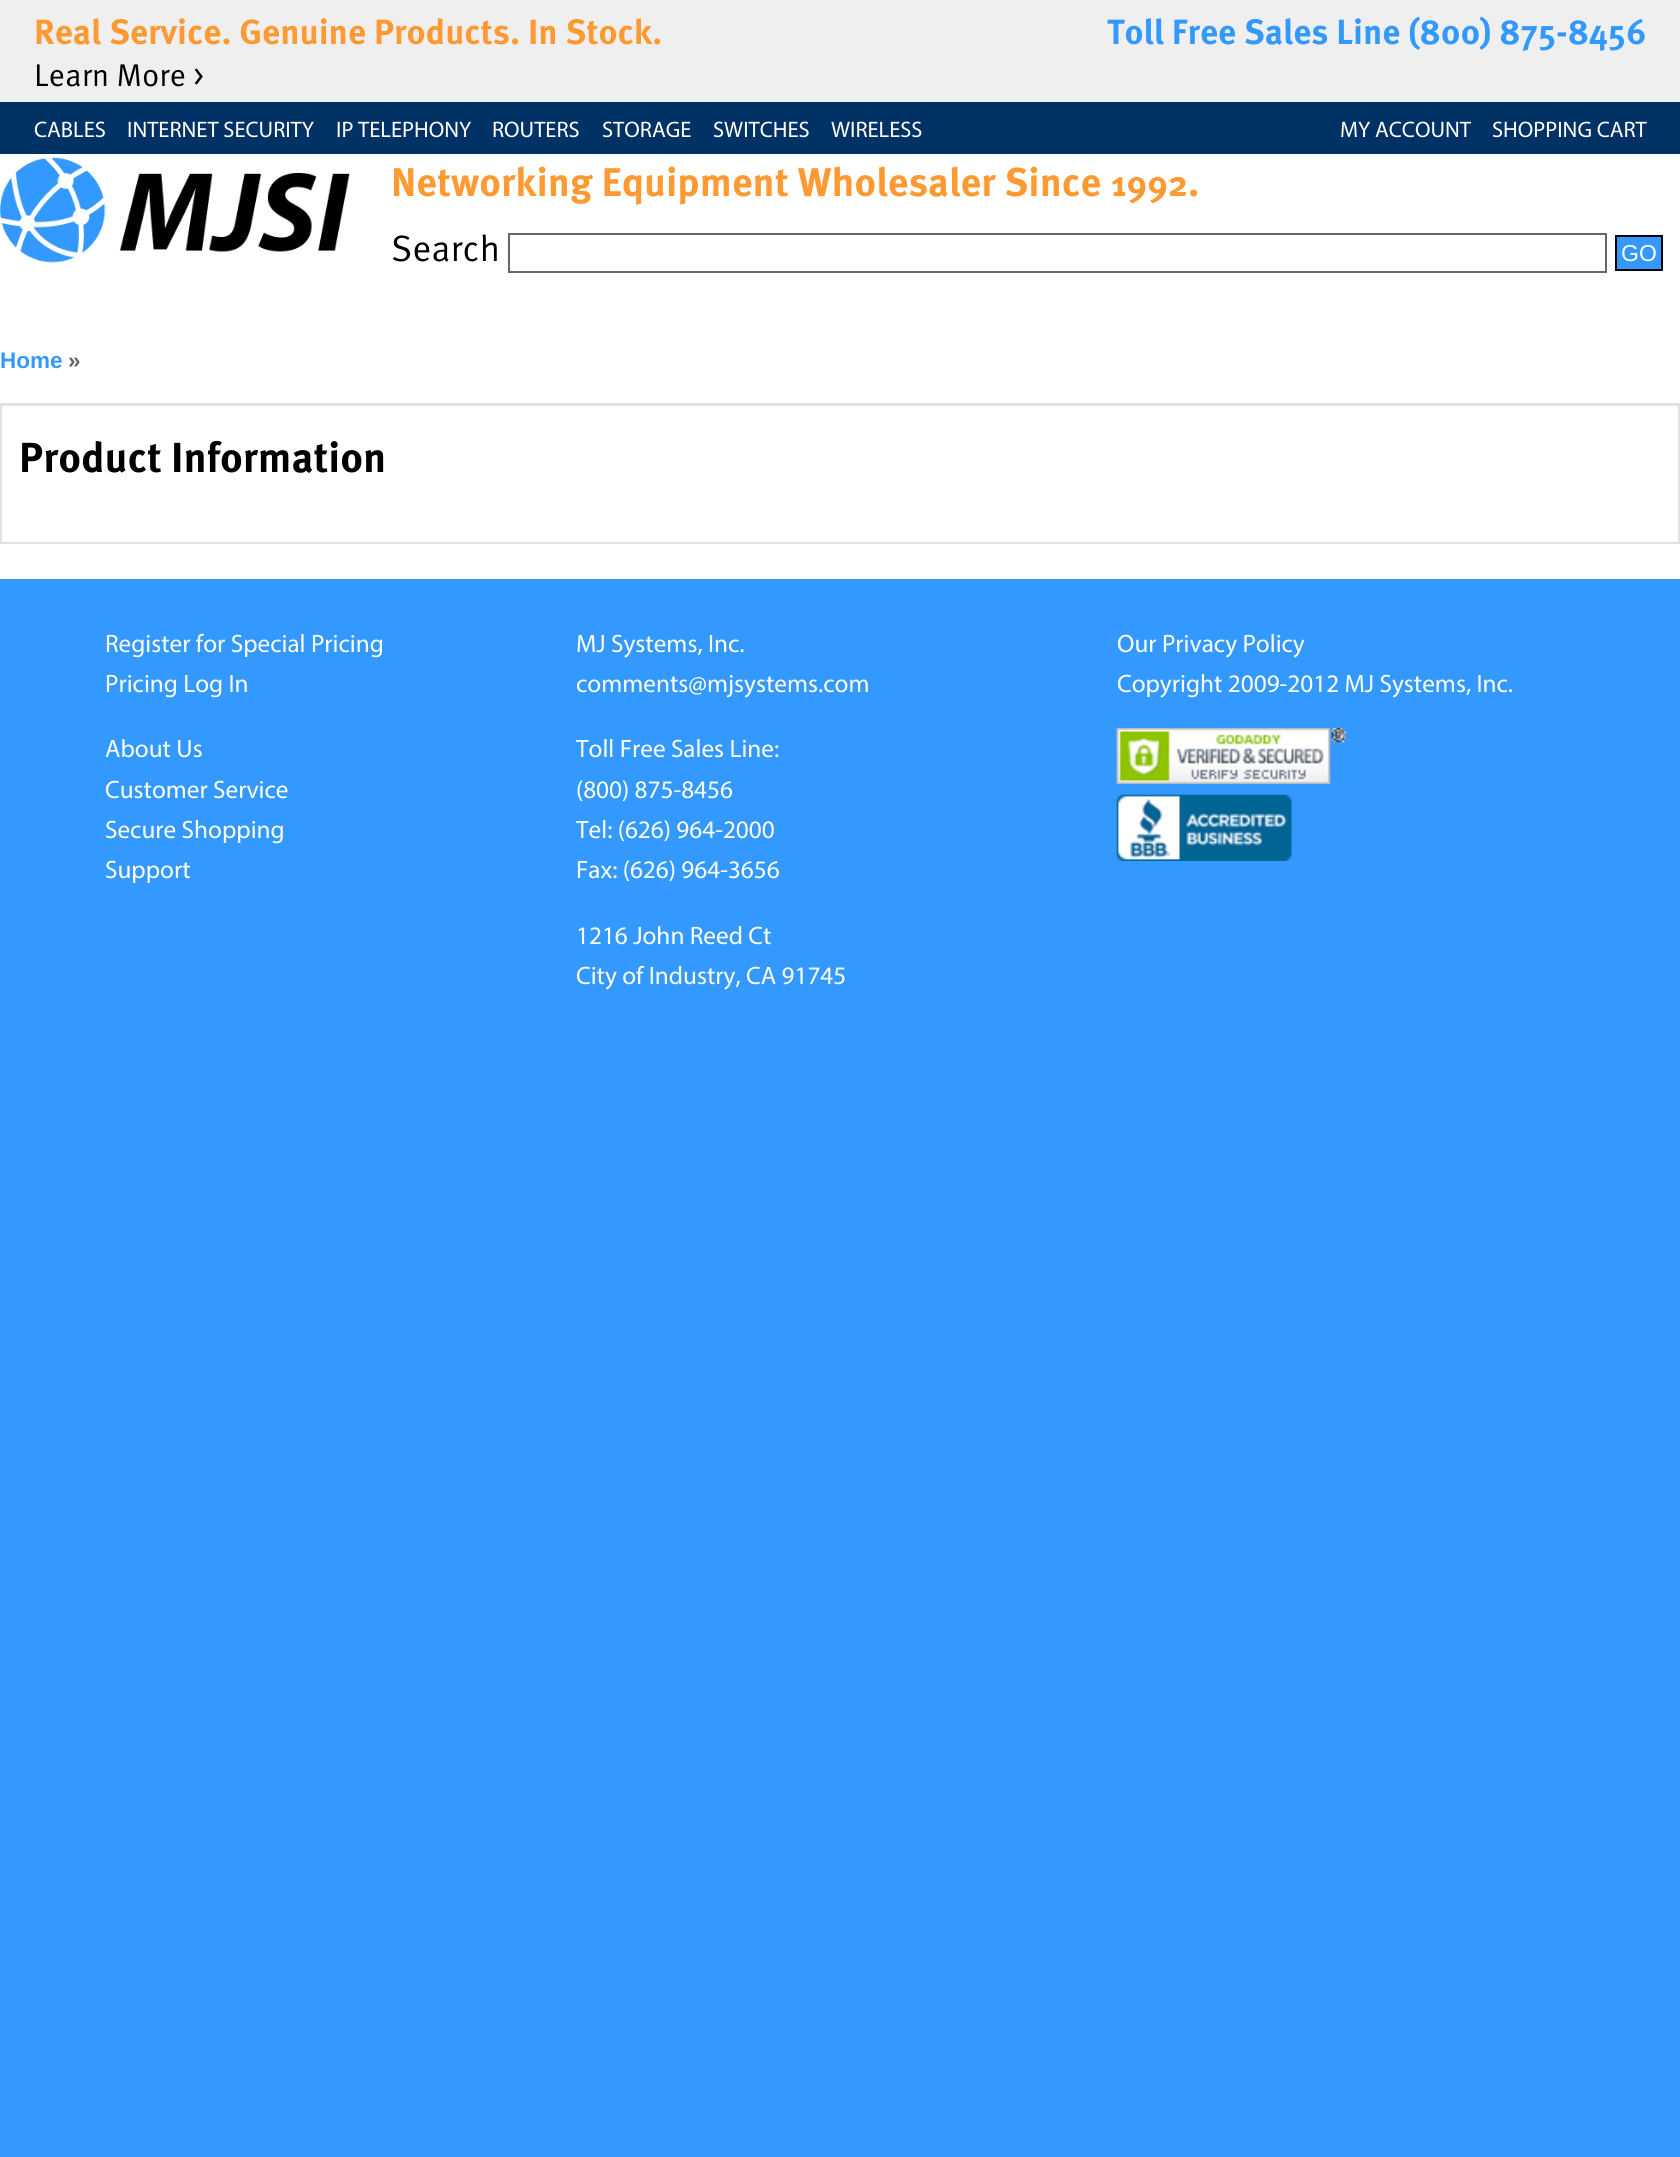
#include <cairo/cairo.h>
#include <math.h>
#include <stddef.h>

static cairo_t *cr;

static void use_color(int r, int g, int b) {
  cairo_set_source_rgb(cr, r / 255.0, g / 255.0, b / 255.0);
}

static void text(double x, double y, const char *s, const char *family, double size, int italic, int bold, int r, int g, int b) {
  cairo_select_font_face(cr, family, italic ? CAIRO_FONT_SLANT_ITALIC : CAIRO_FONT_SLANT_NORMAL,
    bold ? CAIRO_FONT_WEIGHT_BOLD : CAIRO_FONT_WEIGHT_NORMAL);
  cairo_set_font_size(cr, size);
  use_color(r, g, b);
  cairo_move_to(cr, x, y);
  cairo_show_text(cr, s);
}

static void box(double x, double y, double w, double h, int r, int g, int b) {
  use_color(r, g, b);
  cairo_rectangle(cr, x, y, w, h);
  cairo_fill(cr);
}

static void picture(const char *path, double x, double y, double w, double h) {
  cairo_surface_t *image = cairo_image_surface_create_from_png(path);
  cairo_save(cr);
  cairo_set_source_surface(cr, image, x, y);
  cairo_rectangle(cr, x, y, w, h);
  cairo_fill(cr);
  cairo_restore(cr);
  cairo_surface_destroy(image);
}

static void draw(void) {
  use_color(51, 153, 255);
  cairo_paint(cr);
  box(0, 154, 1680, 425, 255, 255, 255);
  box(0, 102, 1680, 52, 0, 50, 101);
  box(0, 0, 1680, 102, 239, 239, 239);
  picture("img_01.png", 0, 157, 350, 106);
  cairo_rectangle(cr, 509, 234, 1097, 38);
  use_color(102, 102, 102);
  cairo_stroke(cr);
  use_color(51, 153, 255);
  cairo_rectangle(cr, 1616, 236, 46, 34);
  cairo_fill_preserve(cr);
  use_color(0, 0, 0);
  cairo_stroke(cr);
  cairo_rectangle(cr, 1, 404, 1678, 139);
  use_color(225, 225, 225);
  cairo_stroke(cr);
  box(2, 405, 1676, 1, 225, 225, 225);
  picture("img_02.png", 1116, 728, 230, 56);
  picture("img_03.png", 1116, 794, 176, 67);
  text(34, 44, "Real Service. Genuine Products. In Stock.", "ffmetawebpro", 35, 0, 1, 255, 153, 50);
  text(1107, 44, "Toll Free Sales Line (800) 875-8456", "ffmetawebpro", 35, 0, 1, 51, 153, 255);
  text(34, 86, "Learn More >", "ffmetawebpro", 31.5, 0, 0, 0, 0, 0);
  text(34, 137, "CABLES", "Myriad", 22.5, 0, 0, 255, 255, 255);
  text(127, 137, "INTERNET SECURITY", "Myriad", 22.5, 0, 0, 255, 255, 255);
  text(336, 137, "IP TELEPHONY", "Myriad", 22.5, 0, 0, 255, 255, 255);
  text(492, 137, "ROUTERS", "Myriad", 22.5, 0, 0, 255, 255, 255);
  text(602, 137, "STORAGE", "Myriad", 22.5, 0, 0, 255, 255, 255);
  text(713, 137, "SWITCHES", "Myriad", 22.5, 0, 0, 255, 255, 255);
  text(831, 137, "WIRELESS", "Myriad", 22.5, 0, 0, 255, 255, 255);
  text(1340, 137, "MY ACCOUNT", "Myriad", 22.5, 0, 0, 255, 255, 255);
  text(1492, 137, "SHOPPING CART", "Myriad", 22.5, 0, 0, 255, 255, 255);
  text(391, 196, "Networking Equipment Wholesaler Since", "ffmetawebpro", 40, 0, 1, 255, 153, 50);
  text(1111, 196, "1992", "ffmetawebpro", 36, 0, 1, 255, 153, 50);
  text(1188, 196, ".", "ffmetawebpro", 40, 0, 1, 255, 153, 50);
  text(391, 261, "Search", "ffmetawebpro", 36.5, 0, 0, 0, 0, 0);
  text(1621, 261, "GO", "Liberation Sans", 23, 0, 0, 255, 255, 255);
  text(0, 368, "Home", "Liberation Sans", 22.5, 0, 1, 51, 153, 255);
  text(68, 368, "»", "Liberation Sans", 22.5, 0, 1, 102, 102, 102);
  text(19, 472, "Product Information", "ffmetawebpro", 42, 0, 1, 0, 0, 0);
  text(105, 652, "Register for Special Pricing", "Myriad", 25.25, 0, 0, 255, 255, 255);
  text(105, 692, "Pricing Log In", "Myriad", 25.25, 0, 0, 255, 255, 255);
  text(105, 757, "About Us", "Myriad", 25.25, 0, 0, 255, 255, 255);
  text(105, 798, "Customer Service", "Myriad", 25.25, 0, 0, 255, 255, 255);
  text(105, 838, "Secure Shopping", "Myriad", 25.25, 0, 0, 255, 255, 255);
  text(105, 878, "Support", "Myriad", 25.25, 0, 0, 255, 255, 255);
  text(576, 652, "MJ Systems, Inc.", "Myriad", 25.25, 0, 0, 255, 255, 255);
  text(576, 692, "comments@mjsystems.com", "Myriad", 25.25, 0, 0, 255, 255, 255);
  text(576, 757, "Toll Free Sales Line:", "Myriad", 25.25, 0, 0, 255, 255, 255);
  text(576, 798, "(800) 875-8456", "Myriad", 25.25, 0, 0, 255, 255, 255);
  text(576, 838, "Tel: (626) 964-2000", "Myriad", 25.25, 0, 0, 255, 255, 255);
  text(576, 878, "Fax: (626) 964-3656", "Myriad", 25.25, 0, 0, 255, 255, 255);
  text(576, 944, "1216 John Reed Ct", "Myriad", 25.25, 0, 0, 255, 255, 255);
  text(576, 984, "City of Industry, CA 91745", "Myriad", 25.25, 0, 0, 255, 255, 255);
  text(1117, 652, "Our Privacy Policy", "Myriad", 25.25, 0, 0, 255, 255, 255);
  text(1117, 692, "Copyright 2009-2012 MJ Systems, Inc.", "Myriad", 25.25, 0, 0, 255, 255, 255);
}

int main(void) {
  cairo_surface_t *surface = cairo_image_surface_create(CAIRO_FORMAT_RGB24, 1680, 2157);
  cr = cairo_create(surface);
  cairo_font_options_t *options = cairo_font_options_create();
  cairo_font_options_set_hint_metrics(options, CAIRO_HINT_METRICS_OFF);
  cairo_font_options_set_hint_style(options, CAIRO_HINT_STYLE_NONE);
  cairo_set_font_options(cr, options);
  cairo_set_miter_limit(cr, 4);
  draw();
  cairo_surface_write_to_png(surface, "out.png");
  cairo_font_options_destroy(options);
  cairo_destroy(cr);
  cairo_surface_destroy(surface);
  return 0;
}
